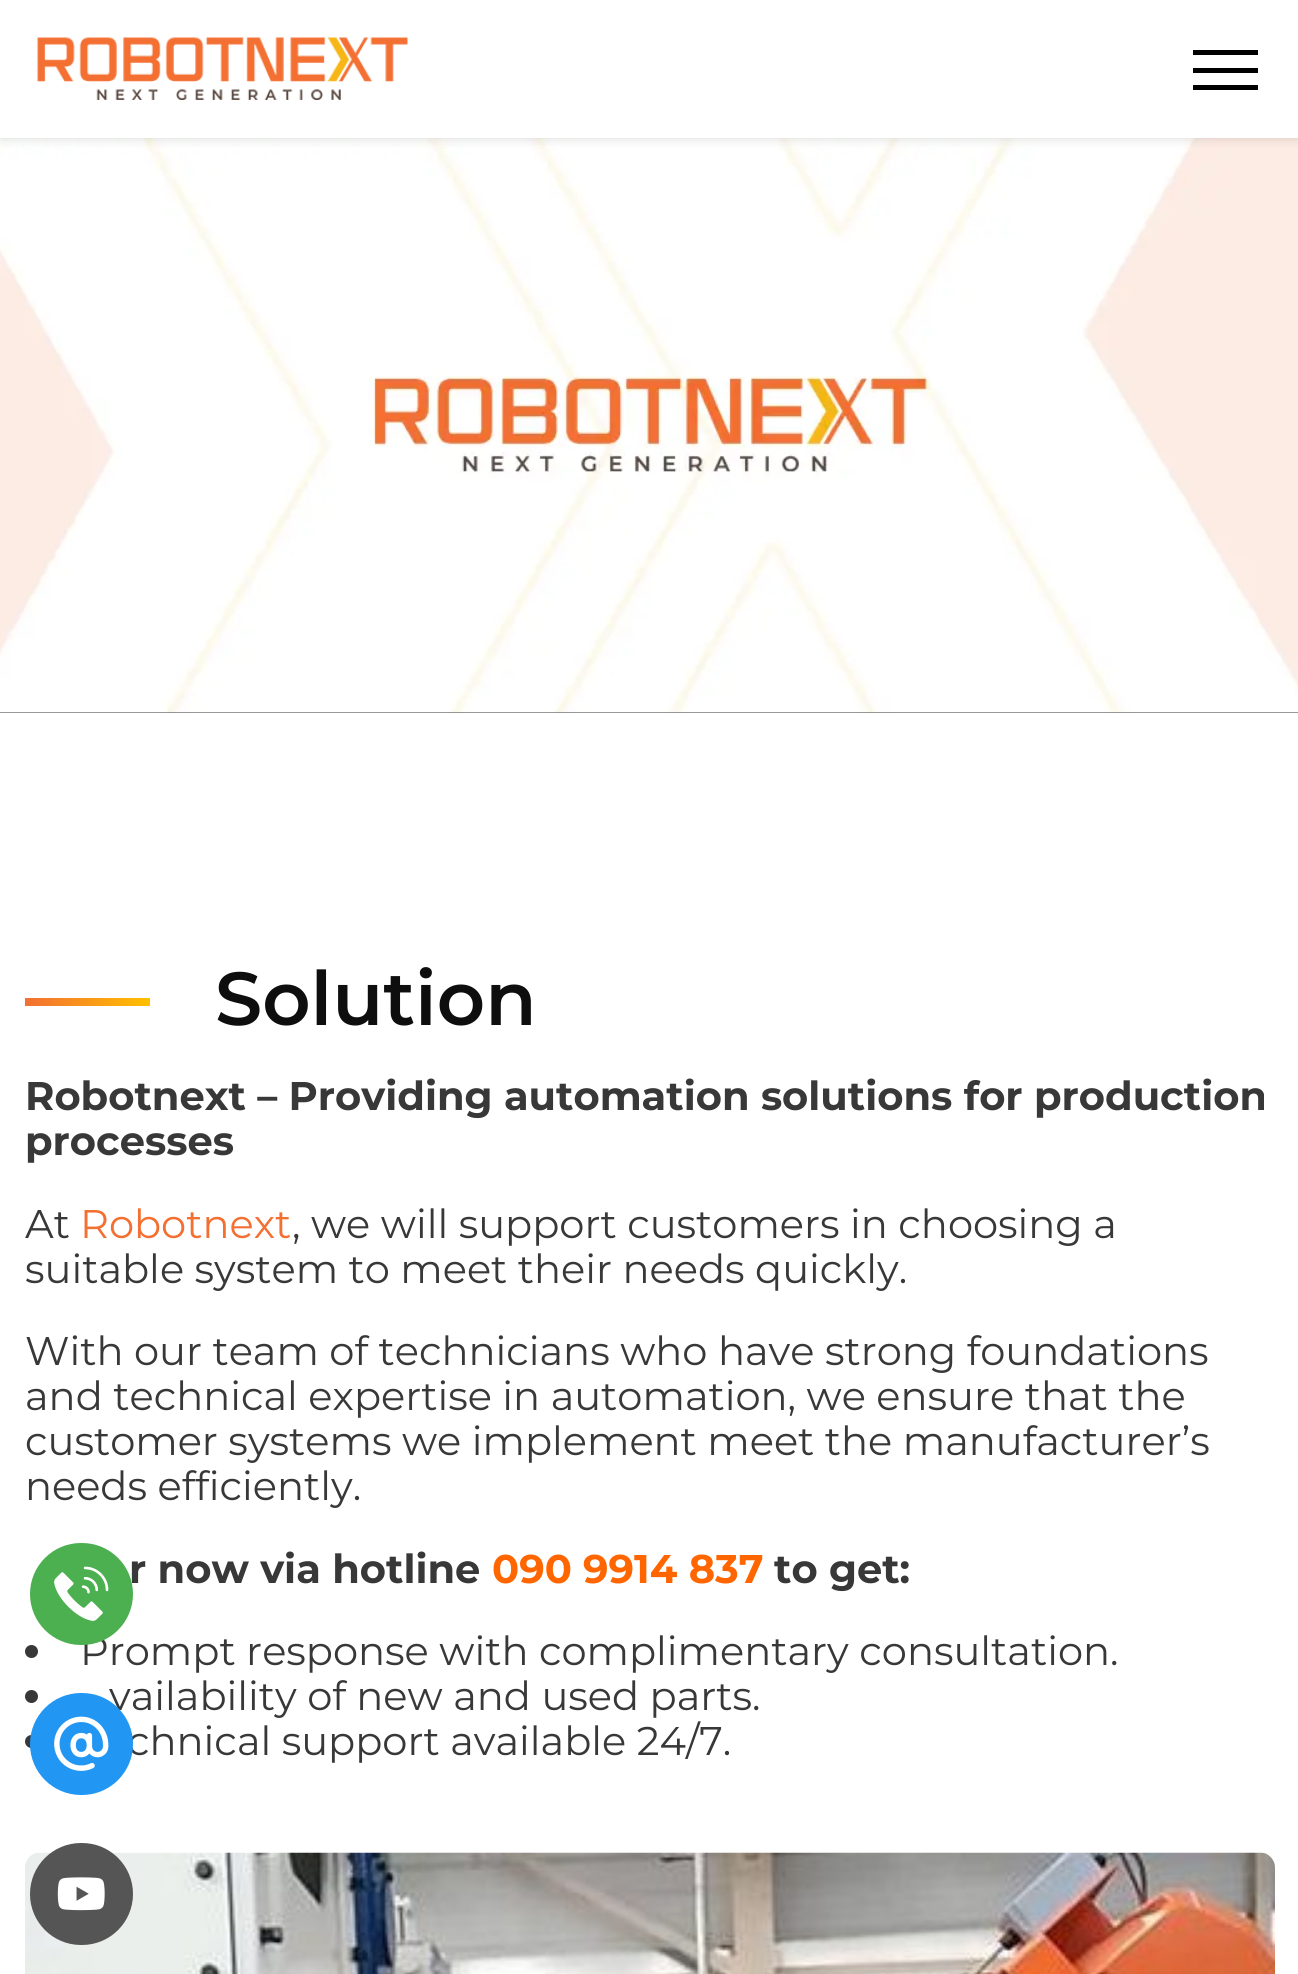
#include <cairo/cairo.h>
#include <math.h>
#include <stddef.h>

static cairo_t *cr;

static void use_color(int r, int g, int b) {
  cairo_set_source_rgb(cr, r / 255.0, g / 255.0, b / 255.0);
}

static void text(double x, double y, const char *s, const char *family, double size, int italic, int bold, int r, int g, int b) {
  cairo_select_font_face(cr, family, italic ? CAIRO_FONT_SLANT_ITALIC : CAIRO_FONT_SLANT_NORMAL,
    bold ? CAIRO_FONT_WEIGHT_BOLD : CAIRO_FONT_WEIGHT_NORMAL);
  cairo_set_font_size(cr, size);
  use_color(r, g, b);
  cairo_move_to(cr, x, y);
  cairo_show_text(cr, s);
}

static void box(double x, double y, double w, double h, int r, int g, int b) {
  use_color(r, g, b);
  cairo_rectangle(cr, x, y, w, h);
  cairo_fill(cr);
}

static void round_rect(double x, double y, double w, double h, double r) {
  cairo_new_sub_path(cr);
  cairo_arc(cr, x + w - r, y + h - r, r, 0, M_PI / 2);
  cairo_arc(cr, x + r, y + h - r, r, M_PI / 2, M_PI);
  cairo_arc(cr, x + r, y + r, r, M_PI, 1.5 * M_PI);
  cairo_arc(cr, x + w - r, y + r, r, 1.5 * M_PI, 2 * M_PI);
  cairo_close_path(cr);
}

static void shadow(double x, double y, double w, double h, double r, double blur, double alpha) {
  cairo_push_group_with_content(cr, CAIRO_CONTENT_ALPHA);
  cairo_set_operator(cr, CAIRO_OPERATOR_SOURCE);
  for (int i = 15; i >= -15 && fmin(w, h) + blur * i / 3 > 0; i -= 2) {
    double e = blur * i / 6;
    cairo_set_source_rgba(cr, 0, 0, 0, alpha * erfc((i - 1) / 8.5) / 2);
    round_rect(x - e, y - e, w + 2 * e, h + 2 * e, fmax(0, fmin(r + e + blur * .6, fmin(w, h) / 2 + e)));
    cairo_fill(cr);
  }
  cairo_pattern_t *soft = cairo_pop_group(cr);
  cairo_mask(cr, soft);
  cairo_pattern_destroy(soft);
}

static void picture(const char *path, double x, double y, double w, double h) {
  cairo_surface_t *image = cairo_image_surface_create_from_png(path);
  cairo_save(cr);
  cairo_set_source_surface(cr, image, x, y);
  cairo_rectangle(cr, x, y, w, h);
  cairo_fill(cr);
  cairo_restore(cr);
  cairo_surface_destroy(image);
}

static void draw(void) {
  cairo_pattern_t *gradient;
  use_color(255, 255, 255);
  cairo_paint(cr);
  box(0, 712, 1298, 1, 51, 51, 51);
  picture("img_02.png", 0, 138, 1298, 575);
  use_color(0, 0, 0);
  shadow(0, 0, 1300, 138, 0, 6, 0.15);
  box(0, 0, 1298, 138, 255, 255, 255);
  picture("img_01.png", 37, 37, 371, 63);
  box(1193, 50, 65, 5, 0, 0, 0);
  box(1193, 68, 65, 5, 0, 0, 0);
  box(1193, 85, 65, 5, 0, 0, 0);
  gradient = cairo_pattern_create_linear(25, 1000, 150, 1000);
  cairo_pattern_add_color_stop_rgba(gradient, 0, 0.953, 0.435, 0.196, 1);
  cairo_pattern_add_color_stop_rgba(gradient, 1, 1, 0.753, 0, 1);
  cairo_set_source(cr, gradient);
  cairo_pattern_destroy(gradient);
  cairo_rectangle(cr, 25, 998, 125, 8);
  cairo_fill(cr);
  use_color(56, 56, 56);
  cairo_arc(cr, 31.5, 1651.5, 6.5, 0, 2 * M_PI);
  cairo_fill(cr);
  cairo_arc(cr, 31.5, 1696.5, 6.5, 0, 2 * M_PI);
  cairo_fill(cr);
  cairo_arc(cr, 31.5, 1741.5, 6.5, 0, 2 * M_PI);
  cairo_fill(cr);
  picture("img_03.png", 25, 1852, 1250, 122);
  use_color(85, 85, 85);
  round_rect(30, 1843, 103, 102, 51);
  cairo_fill(cr);
  picture("img_06.png", 57, 1877, 48, 34);
  text(215, 1025, "Solution", "Montserrat SemiBold", 75, 0, 0, 14, 14, 14);
  text(25, 1110, "Robotnext – Providing automation solutions for production", "Montserrat", 40, 0, 1, 56, 56, 56);
  text(25, 1155, "processes", "Montserrat", 40, 0, 1, 56, 56, 56);
  text(25, 1238, "At", "Montserrat", 40, 0, 0, 56, 56, 56);
  text(80, 1238, "Robotnext", "Montserrat", 40, 0, 0, 243, 111, 50);
  text(292, 1238, ", we will support customers in choosing a", "Montserrat", 40, 0, 0, 56, 56, 56);
  text(25, 1283, "suitable system to meet their needs quickly.", "Montserrat", 40, 0, 0, 56, 56, 56);
  text(25, 1365, "With our team of technicians who have strong foundations", "Montserrat", 40, 0, 0, 56, 56, 56);
  text(25, 1410, "and technical expertise in automation, we ensure that the", "Montserrat", 40, 0, 0, 56, 56, 56);
  text(25, 1455, "customer systems we implement meet the manufacturer’s", "Montserrat", 40, 0, 0, 56, 56, 56);
  text(25, 1500, "needs efficiently.", "Montserrat", 40, 0, 0, 56, 56, 56);
  text(129, 1583, "r now via hotline", "Montserrat", 40, 0, 1, 56, 56, 56);
  text(492, 1583, "090 9914 837", "Montserrat", 40, 0, 1, 255, 102, 0);
  text(774, 1583, "to get:", "Montserrat", 40, 0, 1, 56, 56, 56);
  text(80, 1665, "Prompt response with complimentary consultation.", "Montserrat", 40, 0, 0, 56, 56, 56);
  text(109, 1710, "vailability of new and used parts.", "Montserrat", 40, 0, 0, 56, 56, 56);
  text(127, 1755, "chnical support available 24/7.", "Montserrat", 40, 0, 0, 56, 56, 56);
  use_color(76, 175, 80);
  round_rect(30, 1543, 103, 102, 51);
  cairo_fill(cr);
  picture("img_04.png", 54, 1566, 55, 55);
  use_color(33, 150, 243);
  round_rect(30, 1693, 103, 102, 51);
  cairo_fill(cr);
  picture("img_05.png", 54, 1716, 55, 55);
}

int main(void) {
  cairo_surface_t *surface = cairo_image_surface_create(CAIRO_FORMAT_RGB24, 1298, 1974);
  cr = cairo_create(surface);
  cairo_font_options_t *options = cairo_font_options_create();
  cairo_font_options_set_hint_metrics(options, CAIRO_HINT_METRICS_OFF);
  cairo_font_options_set_hint_style(options, CAIRO_HINT_STYLE_NONE);
  cairo_set_font_options(cr, options);
  cairo_set_miter_limit(cr, 4);
  draw();
  cairo_surface_write_to_png(surface, "out.png");
  cairo_font_options_destroy(options);
  cairo_destroy(cr);
  cairo_surface_destroy(surface);
  return 0;
}
